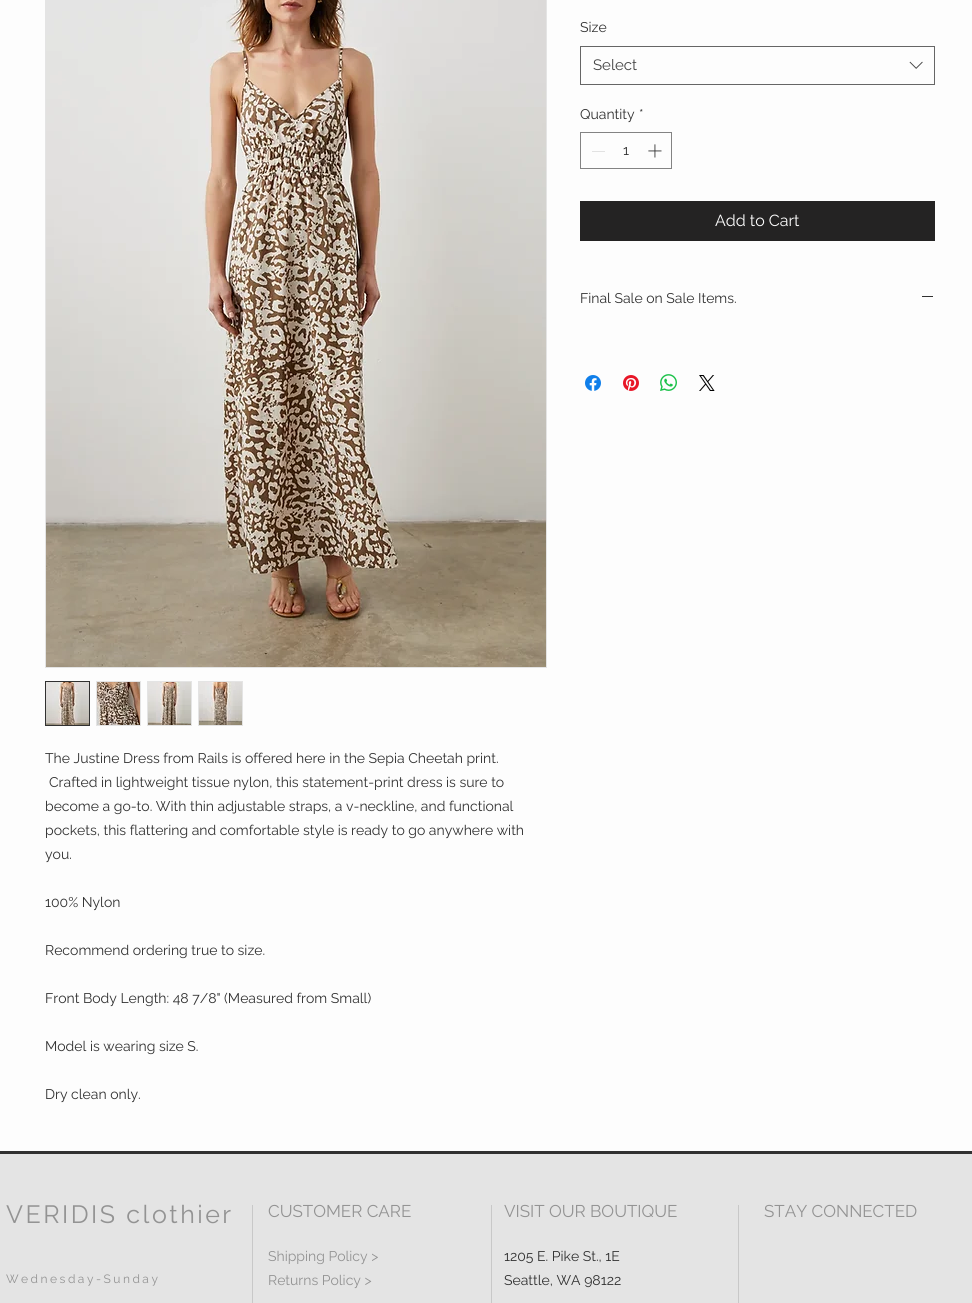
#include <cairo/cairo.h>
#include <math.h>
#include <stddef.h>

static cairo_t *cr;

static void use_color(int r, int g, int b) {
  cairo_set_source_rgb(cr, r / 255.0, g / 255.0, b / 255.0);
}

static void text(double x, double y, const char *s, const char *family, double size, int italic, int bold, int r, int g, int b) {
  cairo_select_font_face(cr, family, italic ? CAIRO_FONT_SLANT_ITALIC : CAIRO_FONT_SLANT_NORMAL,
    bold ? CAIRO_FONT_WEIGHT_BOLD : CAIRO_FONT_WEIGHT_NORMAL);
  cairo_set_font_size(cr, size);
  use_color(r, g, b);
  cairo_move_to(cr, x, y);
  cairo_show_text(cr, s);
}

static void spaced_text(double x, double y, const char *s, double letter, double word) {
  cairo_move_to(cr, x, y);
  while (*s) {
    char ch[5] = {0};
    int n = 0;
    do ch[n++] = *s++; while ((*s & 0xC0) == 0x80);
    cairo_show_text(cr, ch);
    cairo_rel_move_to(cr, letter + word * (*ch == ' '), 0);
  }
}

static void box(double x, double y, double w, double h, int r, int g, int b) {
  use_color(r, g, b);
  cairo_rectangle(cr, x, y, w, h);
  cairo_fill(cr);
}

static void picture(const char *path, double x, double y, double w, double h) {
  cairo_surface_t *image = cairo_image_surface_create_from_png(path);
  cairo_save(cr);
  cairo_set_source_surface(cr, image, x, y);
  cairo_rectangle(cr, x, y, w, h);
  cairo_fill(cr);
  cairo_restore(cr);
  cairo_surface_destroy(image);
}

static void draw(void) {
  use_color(253, 253, 253);
  cairo_paint(cr);
  cairo_rectangle(cr, 580.5, 46.5, 354, 38);
  use_color(102, 102, 102);
  cairo_set_line_width(cr, 1);
  cairo_stroke(cr);
  picture("img_01.png", 909, 61, 14, 8);
  cairo_rectangle(cr, 580.5, 132.5, 91, 36);
  use_color(131, 131, 131);
  cairo_stroke(cr);
  box(592, 151, 13, 1, 226, 226, 226);
  picture("img_02.png", 648, 144, 14, 14);
  box(580, 201, 355, 40, 36, 35, 35);
  box(922, 296, 11, 1, 49, 49, 49);
  picture("img_03.png", 585, 375, 16, 16);
  picture("img_04.png", 623, 375, 16, 16);
  picture("img_05.png", 660, 374, 17, 17);
  picture("img_06.png", 699, 375, 16, 16);
  cairo_rectangle(cr, 45.5, -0.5, 501, 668);
  use_color(228, 228, 228);
  cairo_stroke(cr);
  picture("img_07.png", 46, 0, 500, 667);
  cairo_rectangle(cr, 45.5, 681.5, 44, 44);
  use_color(49, 49, 49);
  cairo_stroke(cr);
  picture("img_08.png", 46, 682, 43, 43);
  cairo_rectangle(cr, 96.5, 681.5, 44, 44);
  use_color(228, 228, 228);
  cairo_stroke(cr);
  picture("img_09.png", 97, 682, 43, 43);
  cairo_rectangle(cr, 147.5, 681.5, 44, 44);
  cairo_stroke(cr);
  picture("img_10.png", 148, 682, 43, 43);
  cairo_rectangle(cr, 198.5, 681.5, 44, 44);
  cairo_stroke(cr);
  picture("img_11.png", 199, 682, 43, 43);
  box(0, 1154, 972, 149, 228, 228, 228);
  box(0, 1151, 972, 3, 49, 49, 49);
  box(252, 1205, 1, 98, 200, 200, 200);
  box(491, 1205, 1, 98, 200, 200, 200);
  box(738, 1205, 1, 98, 200, 200, 200);
  text(580, 32, "Size", "Raleway", 14, 0, 0, 49, 49, 49);
  text(593, 70, "Select", "Raleway", 15, 0, 0, 68, 68, 68);
  text(580, 119, "Quantity", "Raleway", 14, 0, 0, 49, 49, 49);
  text(639, 119, "*", "Raleway", 14, 0, 0, 49, 49, 49);
  text(623, 155, "1", "Raleway", 14, 0, 0, 49, 49, 49);
  text(715, 226, "Add to Cart", "Raleway", 16, 0, 0, 253, 253, 253);
  text(580, 303, "Final Sale on Sale Items.", "Raleway", 14, 0, 0, 49, 49, 49);
  text(45, 763, "The Justine Dress from Rails is offered here in the Sepia Cheetah print.", "Raleway", 14, 0, 0, 49, 49, 49);
  text(49, 787, "Crafted in lightweight tissue nylon, this statement-print dress is sure to", "Raleway", 14, 0, 0, 49, 49, 49);
  text(45, 811, "become a go-to. With thin adjustable straps, a v-neckline, and functional", "Raleway", 14, 0, 0, 49, 49, 49);
  text(45, 835, "pockets, this flattering and comfortable style is ready to go anywhere with", "Raleway", 14, 0, 0, 49, 49, 49);
  text(45, 859, "you.", "Raleway", 14, 0, 0, 49, 49, 49);
  text(45, 907, "100% Nylon", "Raleway", 14, 0, 0, 49, 49, 49);
  text(45, 955, "Recommend ordering true to size.", "Raleway", 14, 0, 0, 49, 49, 49);
  text(45, 1003, "Front Body Length: 48 7/8\" (Measured from Small)", "Raleway", 14, 0, 0, 49, 49, 49);
  text(45, 1051, "Model is wearing size S.", "Raleway", 14, 0, 0, 49, 49, 49);
  text(45, 1099, "Dry clean only.", "Raleway", 14, 0, 0, 49, 49, 49);
  cairo_set_font_size(cr, 25);
  use_color(147, 147, 147);
  spaced_text(6, 1223, "VERIDIS clothier", 2.5, 0);
  cairo_set_font_size(cr, 12);
  spaced_text(6, 1283, "Wednesday-Sunday", 2.5, 0);
  text(268, 1217, "CUSTOMER CARE", "Raleway", 17, 0, 0, 147, 147, 147);
  text(268, 1261, "Shipping Policy >", "Raleway", 14, 0, 0, 147, 147, 147);
  text(268, 1285, "Returns Policy >", "Raleway", 14, 0, 0, 147, 147, 147);
  text(504, 1217, "VISIT OUR BOUTIQUE", "Raleway", 17, 0, 0, 147, 147, 147);
  text(504, 1261, "1205 E. Pike St., 1E", "Raleway", 14, 0, 0, 49, 49, 49);
  text(504, 1285, "Seattle, WA 98122", "Raleway", 14, 0, 0, 49, 49, 49);
  text(764, 1217, "STAY CONNECTED", "Raleway", 17, 0, 0, 147, 147, 147);
}

int main(void) {
  cairo_surface_t *surface = cairo_image_surface_create(CAIRO_FORMAT_RGB24, 972, 1303);
  cr = cairo_create(surface);
  cairo_font_options_t *options = cairo_font_options_create();
  cairo_font_options_set_hint_metrics(options, CAIRO_HINT_METRICS_OFF);
  cairo_font_options_set_hint_style(options, CAIRO_HINT_STYLE_NONE);
  cairo_set_font_options(cr, options);
  cairo_set_miter_limit(cr, 4);
  draw();
  cairo_surface_write_to_png(surface, "out.png");
  cairo_font_options_destroy(options);
  cairo_destroy(cr);
  cairo_surface_destroy(surface);
  return 0;
}
